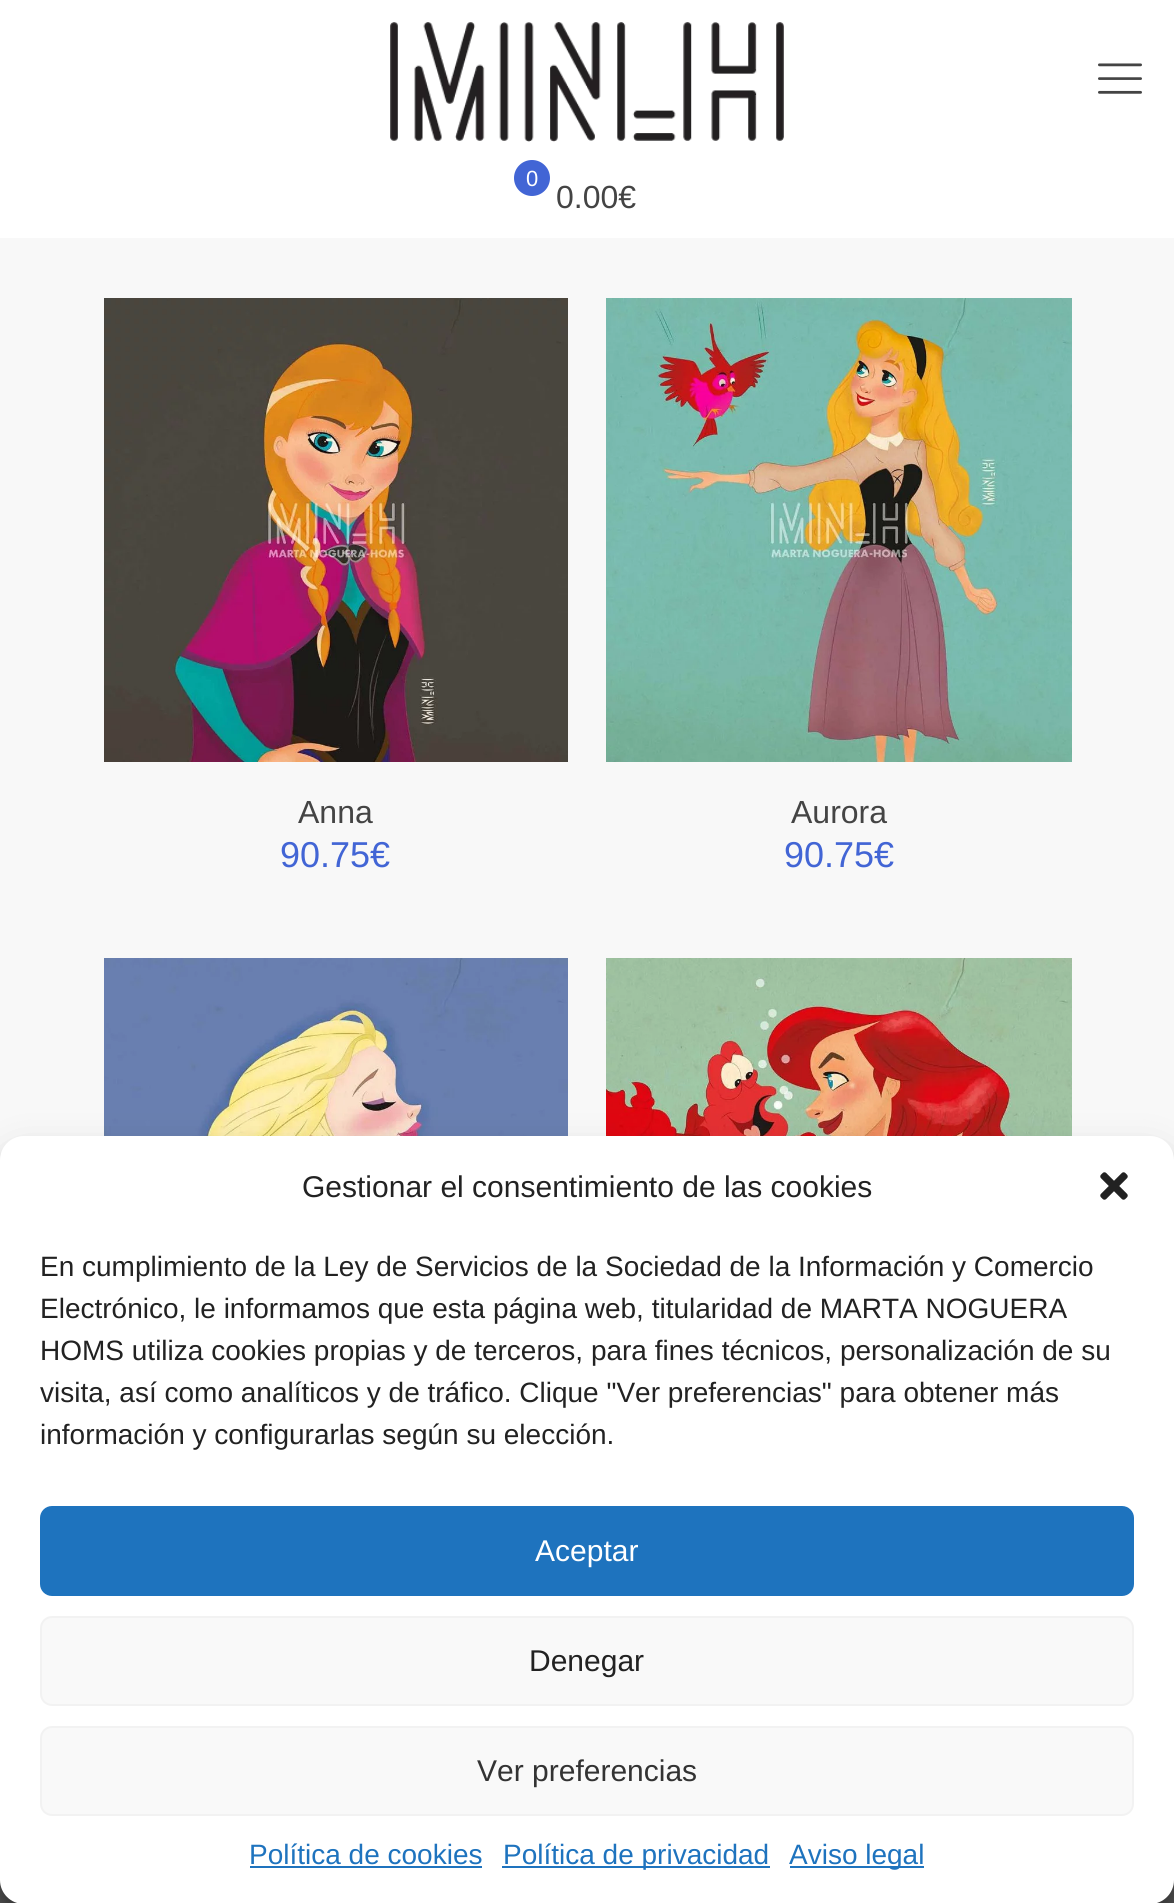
#include <cairo/cairo.h>
#include <math.h>
#include <stddef.h>

static cairo_t *cr;

static void use_color(int r, int g, int b) {
  cairo_set_source_rgb(cr, r / 255.0, g / 255.0, b / 255.0);
}

static void text(double x, double y, const char *s, const char *family, double size, int italic, int bold, int r, int g, int b) {
  cairo_select_font_face(cr, family, italic ? CAIRO_FONT_SLANT_ITALIC : CAIRO_FONT_SLANT_NORMAL,
    bold ? CAIRO_FONT_WEIGHT_BOLD : CAIRO_FONT_WEIGHT_NORMAL);
  cairo_set_font_size(cr, size);
  use_color(r, g, b);
  cairo_move_to(cr, x, y);
  cairo_show_text(cr, s);
}

static void box(double x, double y, double w, double h, int r, int g, int b) {
  use_color(r, g, b);
  cairo_rectangle(cr, x, y, w, h);
  cairo_fill(cr);
}

static void round_rect(double x, double y, double w, double h, double r) {
  cairo_new_sub_path(cr);
  cairo_arc(cr, x + w - r, y + h - r, r, 0, M_PI / 2);
  cairo_arc(cr, x + r, y + h - r, r, M_PI / 2, M_PI);
  cairo_arc(cr, x + r, y + r, r, M_PI, 1.5 * M_PI);
  cairo_arc(cr, x + w - r, y + r, r, 1.5 * M_PI, 2 * M_PI);
  cairo_close_path(cr);
}

static void shadow(double x, double y, double w, double h, double r, double blur, double alpha) {
  cairo_push_group_with_content(cr, CAIRO_CONTENT_ALPHA);
  cairo_set_operator(cr, CAIRO_OPERATOR_SOURCE);
  for (int i = 15; i >= -15 && fmin(w, h) + blur * i / 3 > 0; i -= 2) {
    double e = blur * i / 6;
    cairo_set_source_rgba(cr, 0, 0, 0, alpha * erfc((i - 1) / 8.5) / 2);
    round_rect(x - e, y - e, w + 2 * e, h + 2 * e, fmax(0, fmin(r + e + blur * .6, fmin(w, h) / 2 + e)));
    cairo_fill(cr);
  }
  cairo_pattern_t *soft = cairo_pop_group(cr);
  cairo_mask(cr, soft);
  cairo_pattern_destroy(soft);
}

static void picture(const char *path, double x, double y, double w, double h) {
  cairo_surface_t *image = cairo_image_surface_create_from_png(path);
  cairo_save(cr);
  cairo_set_source_surface(cr, image, x, y);
  cairo_rectangle(cr, x, y, w, h);
  cairo_fill(cr);
  cairo_restore(cr);
  cairo_surface_destroy(image);
}

static void draw(void) {
  use_color(248, 248, 248);
  cairo_paint(cr);
  box(0, 0, 1174, 238, 255, 255, 255);
  picture("img_01.png", 390, 22, 394, 120);
  picture("img_02.png", 1098, 63, 44, 31);
  use_color(66, 101, 213);
  cairo_arc(cr, 532, 178, 18, 0, 2 * M_PI);
  cairo_fill(cr);
  picture("img_03.png", 104, 298, 464, 464);
  picture("img_04.png", 606, 298, 466, 464);
  picture("img_05.png", 104, 958, 464, 178);
  picture("img_06.png", 606, 958, 466, 178);
  box(0, 1880, 1174, 23, 84, 84, 84);
  use_color(0, 0, 0);
  shadow(0, 1148, 1174, 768, 24, 6, 0.23);
  shadow(0, 1156, 1174, 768, 24, 20, 0.19);
  use_color(255, 255, 255);
  round_rect(0, 1136, 1174, 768, 24);
  cairo_fill(cr);
  picture("img_07.png", 1100, 1172, 28, 28);
  use_color(30, 115, 190);
  round_rect(41, 1507, 1092, 88, 11);
  cairo_fill_preserve(cr);
  cairo_stroke(cr);
  use_color(249, 249, 249);
  round_rect(41, 1617, 1092, 88, 11);
  cairo_fill_preserve(cr);
  use_color(242, 242, 242);
  cairo_stroke(cr);
  use_color(249, 249, 249);
  round_rect(41, 1727, 1092, 88, 11);
  cairo_fill_preserve(cr);
  use_color(242, 242, 242);
  cairo_stroke(cr);
  box(250, 1866, 232, 2, 30, 115, 190);
  box(502, 1866, 268, 2, 30, 115, 190);
  box(790, 1866, 134, 2, 30, 115, 190);
  text(526, 186, "0", "Liberation Sans", 22, 0, 0, 255, 255, 255);
  text(556, 208, "0.00€", "Liberation Sans", 32, 0, 0, 68, 68, 68);
  text(298, 823, "Anna", "Liberation Sans", 32, 0, 0, 68, 68, 68);
  text(280, 867, "90.75€", "Liberation Sans", 36, 0, 0, 66, 101, 213);
  text(791, 823, "Aurora", "Liberation Sans", 32, 0, 0, 68, 68, 68);
  text(784, 867, "90.75€", "Liberation Sans", 36, 0, 0, 66, 101, 213);
  text(302, 1197, "Gestionar el consentimiento de las cookies", "Liberation Sans", 30, 0, 0, 34, 34, 34);
  text(40, 1276, "En cumplimiento de la Ley de Servicios de la Sociedad de la Información y Comercio", "Liberation Sans", 28, 0, 0, 34, 34, 34);
  text(40, 1318, "Electrónico, le informamos que esta página web, titularidad de MARTA NOGUERA", "Liberation Sans", 28, 0, 0, 34, 34, 34);
  text(40, 1360, "HOMS utiliza cookies propias y de terceros, para fines técnicos, personalización de su", "Liberation Sans", 28, 0, 0, 34, 34, 34);
  text(40, 1402, "visita, así como analíticos y de tráfico. Clique \"Ver preferencias\" para obtener más", "Liberation Sans", 28, 0, 0, 34, 34, 34);
  text(40, 1444, "información y configurarlas según su elección.", "Liberation Sans", 28, 0, 0, 34, 34, 34);
  text(535, 1561, "Aceptar", "Liberation Sans", 30, 0, 0, 255, 255, 255);
  text(529, 1671, "Denegar", "Liberation Sans", 30, 0, 0, 34, 34, 34);
  text(477, 1781, "Ver preferencias", "Liberation Sans", 30, 0, 0, 51, 51, 51);
  text(249, 1864, "Política de cookies", "Liberation Sans", 28, 0, 0, 30, 115, 190);
  text(503, 1864, "Política de privacidad", "Liberation Sans", 28, 0, 0, 30, 115, 190);
  text(789, 1864, "Aviso legal", "Liberation Sans", 28, 0, 0, 30, 115, 190);
}

int main(void) {
  cairo_surface_t *surface = cairo_image_surface_create(CAIRO_FORMAT_RGB24, 1174, 1903);
  cr = cairo_create(surface);
  cairo_font_options_t *options = cairo_font_options_create();
  cairo_font_options_set_hint_metrics(options, CAIRO_HINT_METRICS_OFF);
  cairo_font_options_set_hint_style(options, CAIRO_HINT_STYLE_NONE);
  cairo_set_font_options(cr, options);
  cairo_set_miter_limit(cr, 4);
  draw();
  cairo_surface_write_to_png(surface, "out.png");
  cairo_font_options_destroy(options);
  cairo_destroy(cr);
  cairo_surface_destroy(surface);
  return 0;
}
